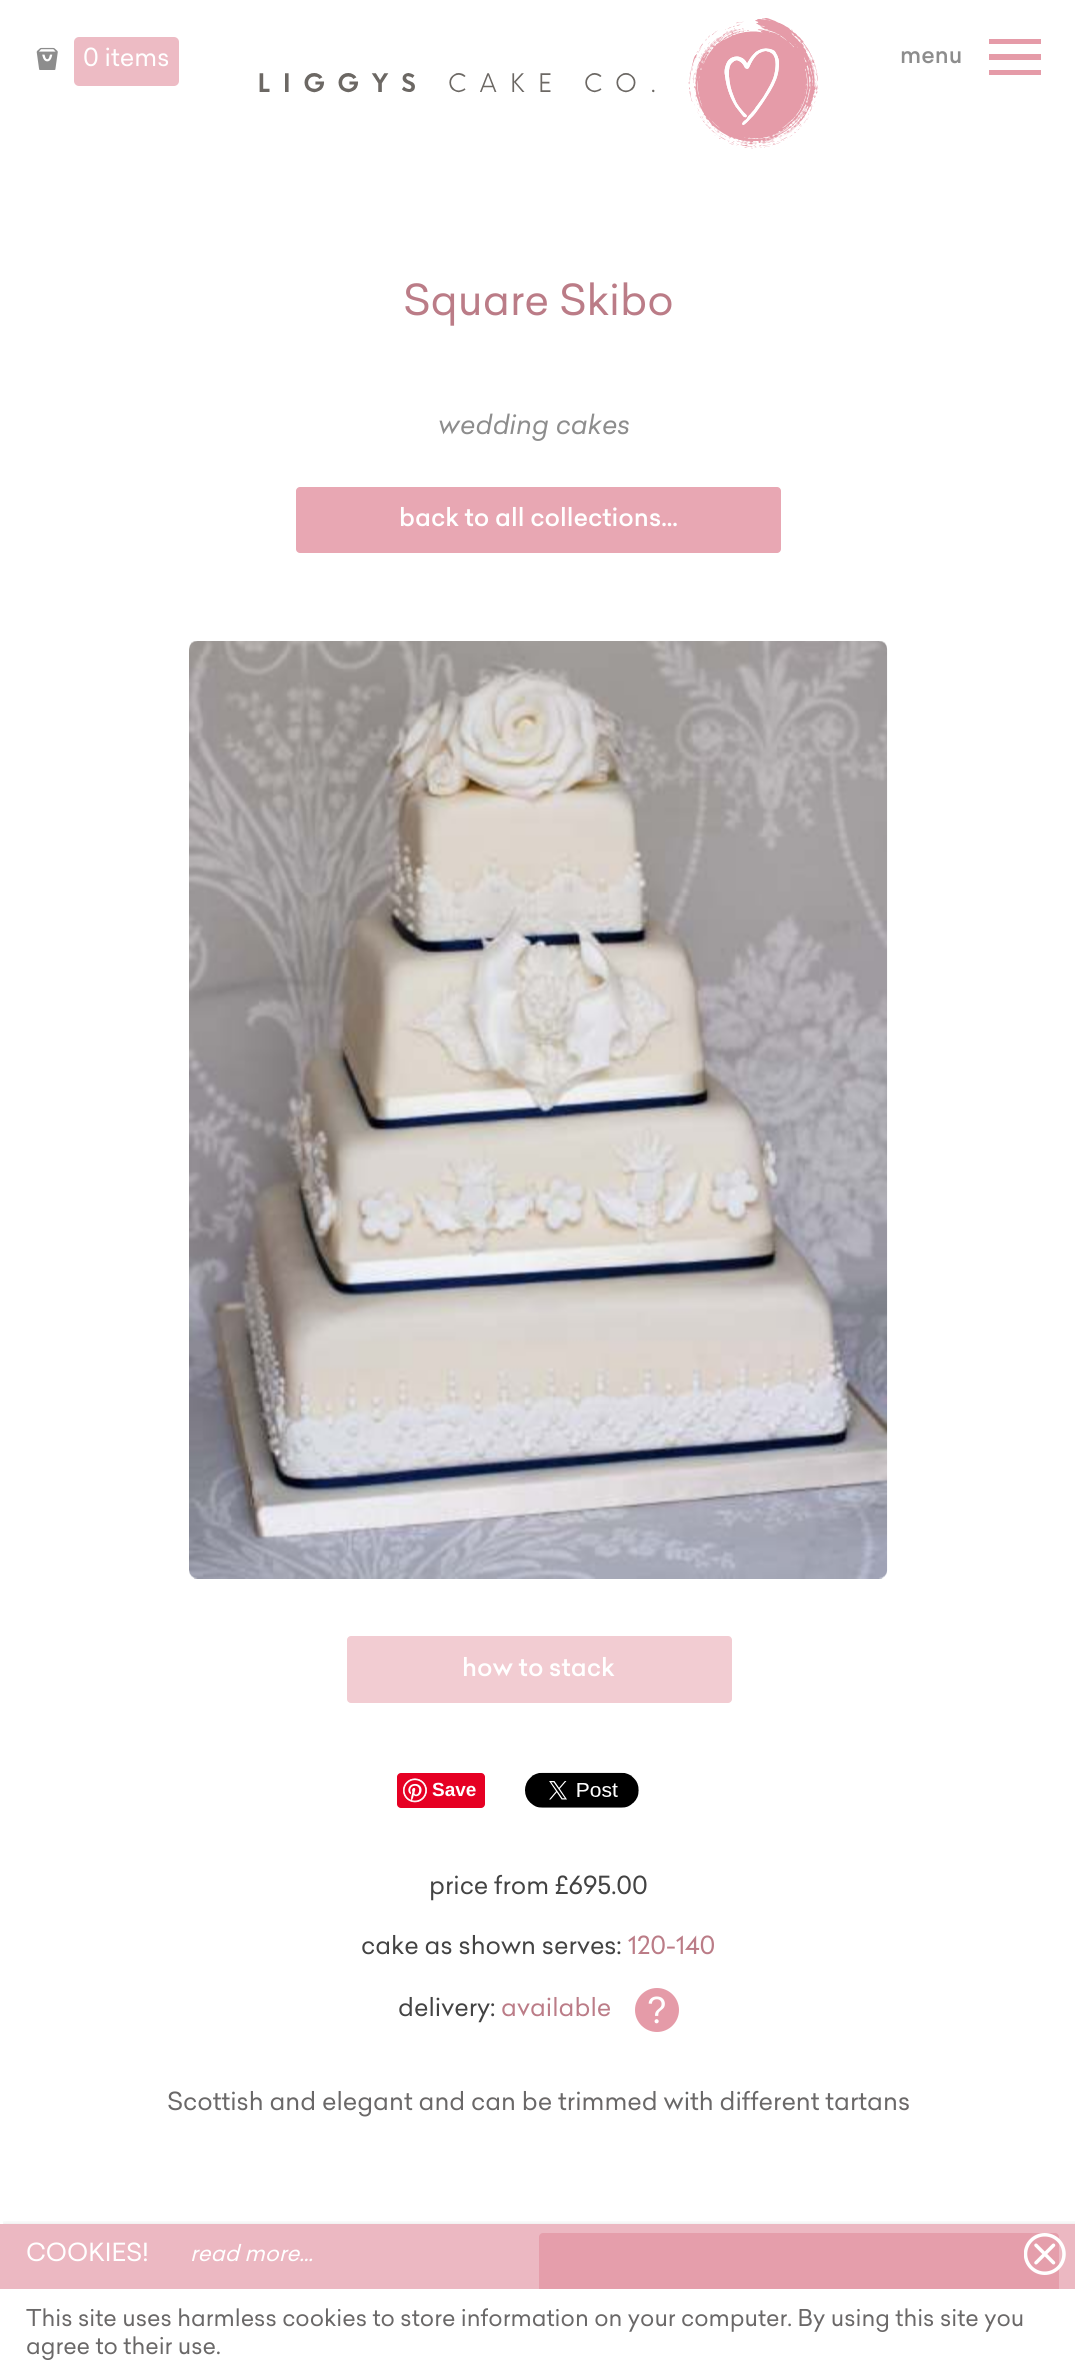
#include <cairo/cairo.h>
#include <math.h>
#include <stddef.h>

static cairo_t *cr;

static void use_color(int r, int g, int b) {
  cairo_set_source_rgb(cr, r / 255.0, g / 255.0, b / 255.0);
}

static void text(double x, double y, const char *s, const char *family, double size, int italic, int bold, int r, int g, int b) {
  cairo_select_font_face(cr, family, italic ? CAIRO_FONT_SLANT_ITALIC : CAIRO_FONT_SLANT_NORMAL,
    bold ? CAIRO_FONT_WEIGHT_BOLD : CAIRO_FONT_WEIGHT_NORMAL);
  cairo_set_font_size(cr, size);
  use_color(r, g, b);
  cairo_move_to(cr, x, y);
  cairo_show_text(cr, s);
}

static void box(double x, double y, double w, double h, int r, int g, int b) {
  use_color(r, g, b);
  cairo_rectangle(cr, x, y, w, h);
  cairo_fill(cr);
}

static void round_rect(double x, double y, double w, double h, double r) {
  cairo_new_sub_path(cr);
  cairo_arc(cr, x + w - r, y + h - r, r, 0, M_PI / 2);
  cairo_arc(cr, x + r, y + h - r, r, M_PI / 2, M_PI);
  cairo_arc(cr, x + r, y + r, r, M_PI, 1.5 * M_PI);
  cairo_arc(cr, x + w - r, y + r, r, 1.5 * M_PI, 2 * M_PI);
  cairo_close_path(cr);
}

static void shadow(double x, double y, double w, double h, double r, double blur, double alpha) {
  cairo_push_group_with_content(cr, CAIRO_CONTENT_ALPHA);
  cairo_set_operator(cr, CAIRO_OPERATOR_SOURCE);
  for (int i = 15; i >= -15 && fmin(w, h) + blur * i / 3 > 0; i -= 2) {
    double e = blur * i / 6;
    cairo_set_source_rgba(cr, 0, 0, 0, alpha * erfc((i - 1) / 8.5) / 2);
    round_rect(x - e, y - e, w + 2 * e, h + 2 * e, fmax(0, fmin(r + e + blur * .6, fmin(w, h) / 2 + e)));
    cairo_fill(cr);
  }
  cairo_pattern_t *soft = cairo_pop_group(cr);
  cairo_mask(cr, soft);
  cairo_pattern_destroy(soft);
}

static void picture(const char *path, double x, double y, double w, double h) {
  cairo_surface_t *image = cairo_image_surface_create_from_png(path);
  cairo_save(cr);
  cairo_set_source_surface(cr, image, x, y);
  cairo_rectangle(cr, x, y, w, h);
  cairo_fill(cr);
  cairo_restore(cr);
  cairo_surface_destroy(image);
}

static void draw(void) {
  use_color(255, 255, 255);
  cairo_paint(cr);
  picture("img_01.png", 36, 47, 22, 23);
  use_color(237, 187, 196);
  round_rect(74, 37, 105, 49, 5);
  cairo_fill(cr);
  picture("img_02.png", 259, 18, 560, 131);
  use_color(229, 155, 168);
  cairo_set_fill_rule(cr, CAIRO_FILL_RULE_EVEN_ODD);
  cairo_new_path(cr);
  cairo_move_to(cr, 989, 39);
  cairo_line_to(cr, 1041, 39);
  cairo_line_to(cr, 1041, 44);
  cairo_line_to(cr, 989, 44);
  cairo_close_path(cr);
  cairo_move_to(cr, 989, 54);
  cairo_line_to(cr, 1041, 54);
  cairo_line_to(cr, 1041, 60);
  cairo_line_to(cr, 989, 60);
  cairo_close_path(cr);
  cairo_move_to(cr, 989, 70);
  cairo_line_to(cr, 1041, 70);
  cairo_line_to(cr, 1041, 75);
  cairo_line_to(cr, 989, 75);
  cairo_close_path(cr);
  cairo_fill(cr);
  use_color(232, 167, 179);
  round_rect(296, 487, 485, 66, 4);
  cairo_fill(cr);
  picture("img_03.png", 189, 641, 699, 938);
  use_color(242, 204, 210);
  round_rect(347, 1636, 385, 67, 4);
  cairo_fill(cr);
  use_color(230, 0, 35);
  round_rect(397, 1773, 88, 35, 4);
  cairo_fill(cr);
  picture("img_04.png", 403, 1778, 24, 25);
  picture("img_05.png", 525, 1772, 114, 36);
  use_color(229, 155, 168);
  cairo_arc(cr, 657, 2010, 22, 0, 2 * M_PI);
  cairo_fill(cr);
  use_color(232, 167, 179);
  round_rect(539, 2233, 520, 74, 4);
  cairo_fill(cr);
  cairo_save(cr);
  cairo_set_fill_rule(cr, CAIRO_FILL_RULE_WINDING);
  cairo_rectangle(cr, 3, 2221, 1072, 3);
  cairo_clip(cr);
  use_color(0, 0, 0);
  shadow(4, 2228, 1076, 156, 0, 4.5, 0.3);
  cairo_restore(cr);
  cairo_set_source_rgba(cr, 0.898, 0.608, 0.659, 0.7);
  cairo_rectangle(cr, 0, 2224, 1075, 65);
  cairo_fill(cr);
  picture("img_06.png", 1024, 2233, 42, 42);
  box(539, 2289, 520, 18, 255, 255, 255);
  text(83, 66, "0 items", "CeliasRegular", 24.5, 0, 0, 255, 255, 255);
  text(900, 63, "menu", "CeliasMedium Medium", 22.75, 0, 0, 141, 141, 141);
  text(403, 315, "Square Skibo", "CeliasRegular", 42, 0, 0, 187, 124, 135);
  text(438, 434, "wedding cakes", "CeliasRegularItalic", 26.25, 0, 0, 141, 141, 141);
  text(399, 526, "back to all collections...", "CeliasMedium Medium", 24.5, 0, 0, 255, 255, 255);
  text(462, 1676, "how to stack", "CeliasMedium Medium", 24.5, 0, 0, 255, 255, 255);
  text(432, 1796, "Save", "Liberation Sans", 19, 0, 1, 255, 255, 255);
  text(429, 1894, "price from £695.00", "CeliasRegular", 24.5, 0, 0, 67, 67, 67);
  text(361, 1954, "cake as shown serves:", "CeliasRegular", 24.5, 0, 0, 67, 67, 67);
  text(628, 1954, "120-140", "CeliasRegular", 24.5, 0, 0, 187, 124, 135);
  text(398, 2016, "delivery:", "CeliasRegular", 24.5, 0, 0, 67, 67, 67);
  text(501, 2016, "available", "CeliasRegular", 24.5, 0, 0, 187, 124, 135);
  text(648, 2023, "?", "CeliasRegular", 35, 0, 0, 255, 255, 255);
  text(167, 2110, "Scottish and elegant and can be trimmed with different tartans", "CeliasRegular", 24.5, 0, 0, 106, 104, 104);
  text(26, 2261, "COOKIES!", "CeliasRegular", 24.5, 0, 0, 255, 255, 255);
  text(190, 2261, "read more...", "CeliasRegular", 22, 1, 0, 255, 255, 255);
  text(26, 2326, "This site uses harmless cookies to store information on your computer. By using this site you", "CeliasRegular", 22.75, 0, 0, 106, 104, 104);
  text(26, 2354, "agree to their use.", "CeliasRegular", 22.75, 0, 0, 106, 104, 104);
}

int main(void) {
  cairo_surface_t *surface = cairo_image_surface_create(CAIRO_FORMAT_RGB24, 1075, 2380);
  cr = cairo_create(surface);
  cairo_font_options_t *options = cairo_font_options_create();
  cairo_font_options_set_hint_metrics(options, CAIRO_HINT_METRICS_OFF);
  cairo_font_options_set_hint_style(options, CAIRO_HINT_STYLE_NONE);
  cairo_set_font_options(cr, options);
  cairo_set_miter_limit(cr, 4);
  draw();
  cairo_surface_write_to_png(surface, "out.png");
  cairo_font_options_destroy(options);
  cairo_destroy(cr);
  cairo_surface_destroy(surface);
  return 0;
}
